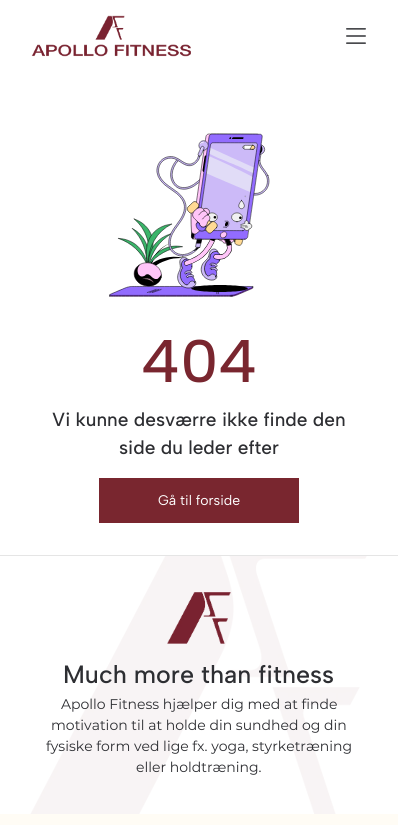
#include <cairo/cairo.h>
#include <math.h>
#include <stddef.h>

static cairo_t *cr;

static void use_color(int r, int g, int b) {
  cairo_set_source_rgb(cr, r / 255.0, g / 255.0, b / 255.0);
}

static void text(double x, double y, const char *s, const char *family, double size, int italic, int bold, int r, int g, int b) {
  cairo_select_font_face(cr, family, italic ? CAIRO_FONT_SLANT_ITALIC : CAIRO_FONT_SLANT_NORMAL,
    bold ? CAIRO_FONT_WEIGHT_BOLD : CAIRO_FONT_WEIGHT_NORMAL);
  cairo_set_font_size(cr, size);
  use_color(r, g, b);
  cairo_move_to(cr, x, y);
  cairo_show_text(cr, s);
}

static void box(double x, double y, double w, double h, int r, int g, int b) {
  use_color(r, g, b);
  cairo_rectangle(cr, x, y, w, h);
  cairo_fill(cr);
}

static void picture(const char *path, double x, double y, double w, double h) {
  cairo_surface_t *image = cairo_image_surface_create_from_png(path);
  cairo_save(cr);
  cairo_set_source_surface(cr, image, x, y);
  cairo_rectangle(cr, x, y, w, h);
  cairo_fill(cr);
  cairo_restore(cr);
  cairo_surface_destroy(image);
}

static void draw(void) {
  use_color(255, 255, 255);
  cairo_paint(cr);
  picture("img_01.png", 31, 15, 160, 42);
  picture("img_02.png", 346, 28, 20, 16);
  picture("img_03.png", 109, 133, 161, 164);
  box(99, 478, 200, 45, 121, 38, 47);
  picture("img_04.png", 30, 556, 337, 258);
  box(0, 555, 398, 1, 229, 229, 229);
  picture("img_05.png", 167, 592, 64, 52);
  box(0, 814, 398, 11, 255, 252, 245);
  text(141, 382, "404", "Albert Sans Medium", 60, 0, 0, 121, 38, 47);
  text(52, 426, "Vi kunne desværre ikke finde den", "Albert Sans Medium", 19, 0, 0, 45, 46, 50);
  text(119, 454, "side du leder efter", "Albert Sans Medium", 19, 0, 0, 45, 46, 50);
  text(158, 505, "Gå til forside", "Albert Sans", 14, 0, 0, 255, 255, 255);
  text(63, 683, "Much more than fitness", "Albert Sans Medium", 25, 0, 0, 45, 46, 50);
  text(61, 709, "Apollo Fitness hjælper dig med at finde", "Montserrat", 14, 0, 0, 45, 46, 50);
  text(51, 730, "motivation til at holde din sundhed og din", "Montserrat", 14, 0, 0, 45, 46, 50);
  text(46, 751, "fysiske form ved lige fx. yoga, styrketræning", "Montserrat", 14, 0, 0, 45, 46, 50);
  text(136, 772, "eller holdtræning.", "Montserrat", 14, 0, 0, 45, 46, 50);
}

int main(void) {
  cairo_surface_t *surface = cairo_image_surface_create(CAIRO_FORMAT_RGB24, 398, 825);
  cr = cairo_create(surface);
  cairo_font_options_t *options = cairo_font_options_create();
  cairo_font_options_set_hint_metrics(options, CAIRO_HINT_METRICS_OFF);
  cairo_font_options_set_hint_style(options, CAIRO_HINT_STYLE_NONE);
  cairo_set_font_options(cr, options);
  cairo_set_miter_limit(cr, 4);
  draw();
  cairo_surface_write_to_png(surface, "out.png");
  cairo_font_options_destroy(options);
  cairo_destroy(cr);
  cairo_surface_destroy(surface);
  return 0;
}
